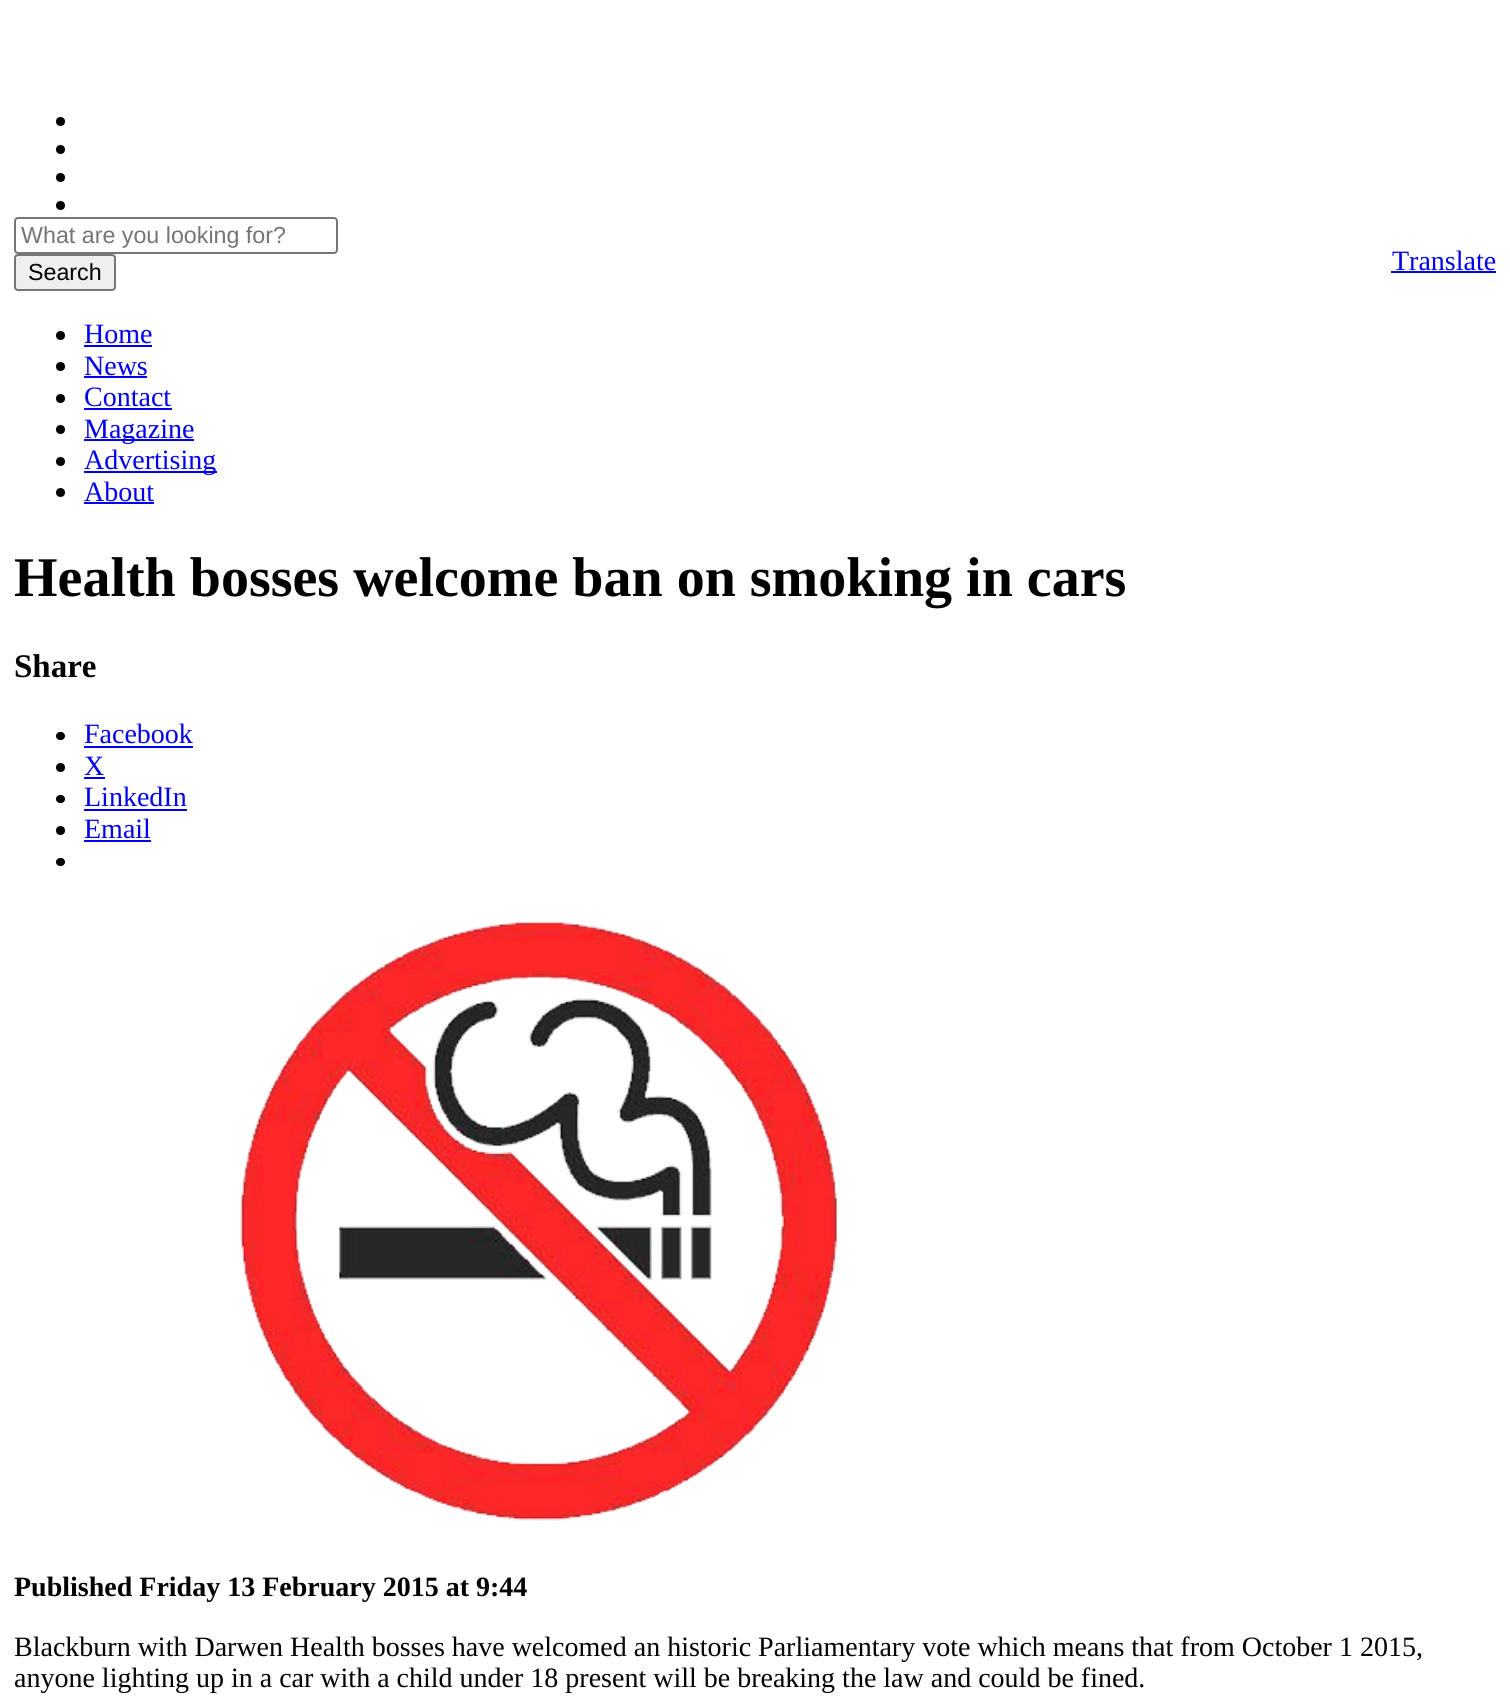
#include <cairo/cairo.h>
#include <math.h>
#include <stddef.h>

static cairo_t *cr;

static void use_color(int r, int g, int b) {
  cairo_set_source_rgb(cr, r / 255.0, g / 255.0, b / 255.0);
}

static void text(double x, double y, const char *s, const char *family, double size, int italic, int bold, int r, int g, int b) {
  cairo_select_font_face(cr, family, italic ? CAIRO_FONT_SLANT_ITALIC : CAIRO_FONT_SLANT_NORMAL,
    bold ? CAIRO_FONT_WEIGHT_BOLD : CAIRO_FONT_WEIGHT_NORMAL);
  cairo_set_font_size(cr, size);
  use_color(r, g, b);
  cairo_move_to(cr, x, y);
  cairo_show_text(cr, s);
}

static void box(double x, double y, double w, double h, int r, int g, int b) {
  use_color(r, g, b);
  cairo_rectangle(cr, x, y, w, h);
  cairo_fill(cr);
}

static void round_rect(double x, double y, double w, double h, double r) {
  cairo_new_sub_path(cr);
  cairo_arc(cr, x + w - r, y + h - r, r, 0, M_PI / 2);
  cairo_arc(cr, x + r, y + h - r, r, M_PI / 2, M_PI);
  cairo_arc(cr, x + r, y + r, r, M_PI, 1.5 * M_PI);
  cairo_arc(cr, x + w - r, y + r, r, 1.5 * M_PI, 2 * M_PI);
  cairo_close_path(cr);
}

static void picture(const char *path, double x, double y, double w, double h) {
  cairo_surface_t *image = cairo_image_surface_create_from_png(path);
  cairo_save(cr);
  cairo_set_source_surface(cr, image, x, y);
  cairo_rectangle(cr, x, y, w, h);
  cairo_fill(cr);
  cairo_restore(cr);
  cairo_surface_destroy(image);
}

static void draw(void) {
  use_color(255, 255, 255);
  cairo_paint(cr);
  use_color(0, 0, 0);
  cairo_arc(cr, 60.5, 121.5, 4.5, 0, 2 * M_PI);
  cairo_fill(cr);
  cairo_arc(cr, 60.5, 149.5, 4.5, 0, 2 * M_PI);
  cairo_fill(cr);
  cairo_arc(cr, 60.5, 177.5, 4.5, 0, 2 * M_PI);
  cairo_fill(cr);
  cairo_arc(cr, 60.5, 205.5, 4.5, 0, 2 * M_PI);
  cairo_fill(cr);
  round_rect(15, 218, 322, 35, 3);
  use_color(118, 118, 118);
  cairo_stroke(cr);
  use_color(239, 239, 239);
  round_rect(15, 255, 100, 35, 3);
  cairo_fill_preserve(cr);
  use_color(118, 118, 118);
  cairo_stroke(cr);
  box(1391, 271, 105, 2, 0, 0, 238);
  use_color(0, 0, 0);
  cairo_arc(cr, 60.5, 335.5, 4.5, 0, 2 * M_PI);
  cairo_fill(cr);
  box(84, 345, 68, 2, 0, 0, 238);
  use_color(0, 0, 0);
  cairo_arc(cr, 60.5, 366.5, 4.5, 0, 2 * M_PI);
  cairo_fill(cr);
  box(84, 376, 63, 2, 0, 0, 238);
  use_color(0, 0, 0);
  cairo_arc(cr, 60.5, 398.5, 4.5, 0, 2 * M_PI);
  cairo_fill(cr);
  box(84, 408, 88, 2, 0, 0, 238);
  use_color(0, 0, 0);
  cairo_arc(cr, 60.5, 429.5, 4.5, 0, 2 * M_PI);
  cairo_fill(cr);
  box(84, 439, 110, 2, 0, 0, 238);
  use_color(0, 0, 0);
  cairo_arc(cr, 60.5, 461.5, 4.5, 0, 2 * M_PI);
  cairo_fill(cr);
  box(84, 471, 133, 2, 0, 0, 238);
  use_color(0, 0, 0);
  cairo_arc(cr, 60.5, 492.5, 4.5, 0, 2 * M_PI);
  cairo_fill(cr);
  box(84, 502, 70, 2, 0, 0, 238);
  use_color(0, 0, 0);
  round_rect(56, 732, 9, 8, 4);
  cairo_fill(cr);
  box(84, 746, 109, 2, 0, 0, 238);
  use_color(0, 0, 0);
  cairo_arc(cr, 60.5, 767.5, 4.5, 0, 2 * M_PI);
  cairo_fill(cr);
  box(84, 777, 21, 2, 0, 0, 238);
  use_color(0, 0, 0);
  round_rect(56, 795, 9, 8, 4);
  cairo_fill(cr);
  box(84, 809, 103, 2, 0, 0, 238);
  use_color(0, 0, 0);
  cairo_arc(cr, 60.5, 830.5, 4.5, 0, 2 * M_PI);
  cairo_fill(cr);
  box(84, 840, 67, 2, 0, 0, 238);
  use_color(0, 0, 0);
  round_rect(56, 858, 9, 8, 4);
  cairo_fill(cr);
  picture("img_01.png", 240, 921, 599, 600);
  text(21, 243, "What are you looking for?", "Liberation Sans", 23.25, 0, 0, 117, 117, 117);
  text(28, 280, "Search", "Liberation Sans", 23.25, 0, 0, 0, 0, 0);
  text(1392, 270, "Translate", "Liberation Serif", 28, 0, 0, 0, 0, 238);
  text(84, 343, "Home", "Liberation Serif", 28, 0, 0, 0, 0, 238);
  text(84, 375, "News", "Liberation Serif", 28, 0, 0, 0, 0, 238);
  text(84, 406, "Contact", "Liberation Serif", 28, 0, 0, 0, 0, 238);
  text(84, 438, "Magazine", "Liberation Serif", 28, 0, 0, 0, 0, 238);
  text(84, 469, "Advertising", "Liberation Serif", 28, 0, 0, 0, 0, 238);
  text(84, 501, "About", "Liberation Serif", 28, 0, 0, 0, 0, 238);
  text(14, 596, "Health bosses welcome ban on smoking in cars", "Liberation Serif", 56, 0, 1, 0, 0, 0);
  text(14, 677, "Share", "Liberation Serif", 33, 0, 1, 0, 0, 0);
  text(84, 743, "Facebook", "Liberation Serif", 28, 0, 0, 0, 0, 238);
  text(84, 775, "X", "Liberation Serif", 28, 0, 0, 0, 0, 238);
  text(84, 806, "LinkedIn", "Liberation Serif", 28, 0, 0, 0, 0, 238);
  text(84, 838, "Email", "Liberation Serif", 28, 0, 0, 0, 0, 238);
  text(14, 1596, "Published Friday 13 February 2015 at 9:44", "Liberation Serif", 28, 0, 1, 0, 0, 0);
  text(14, 1656, "Blackburn with Darwen Health bosses have welcomed an historic Parliamentary vote which means that from October 1 2015,", "Liberation Serif", 28, 0, 0, 0, 0, 0);
  text(14, 1687, "anyone lighting up in a car with a child under 18 present will be breaking the law and could be fined.", "Liberation Serif", 28, 0, 0, 0, 0, 0);
}

int main(void) {
  cairo_surface_t *surface = cairo_image_surface_create(CAIRO_FORMAT_RGB24, 1510, 1707);
  cr = cairo_create(surface);
  cairo_font_options_t *options = cairo_font_options_create();
  cairo_font_options_set_hint_metrics(options, CAIRO_HINT_METRICS_OFF);
  cairo_font_options_set_hint_style(options, CAIRO_HINT_STYLE_NONE);
  cairo_set_font_options(cr, options);
  cairo_set_miter_limit(cr, 4);
  draw();
  cairo_surface_write_to_png(surface, "out.png");
  cairo_font_options_destroy(options);
  cairo_destroy(cr);
  cairo_surface_destroy(surface);
  return 0;
}
